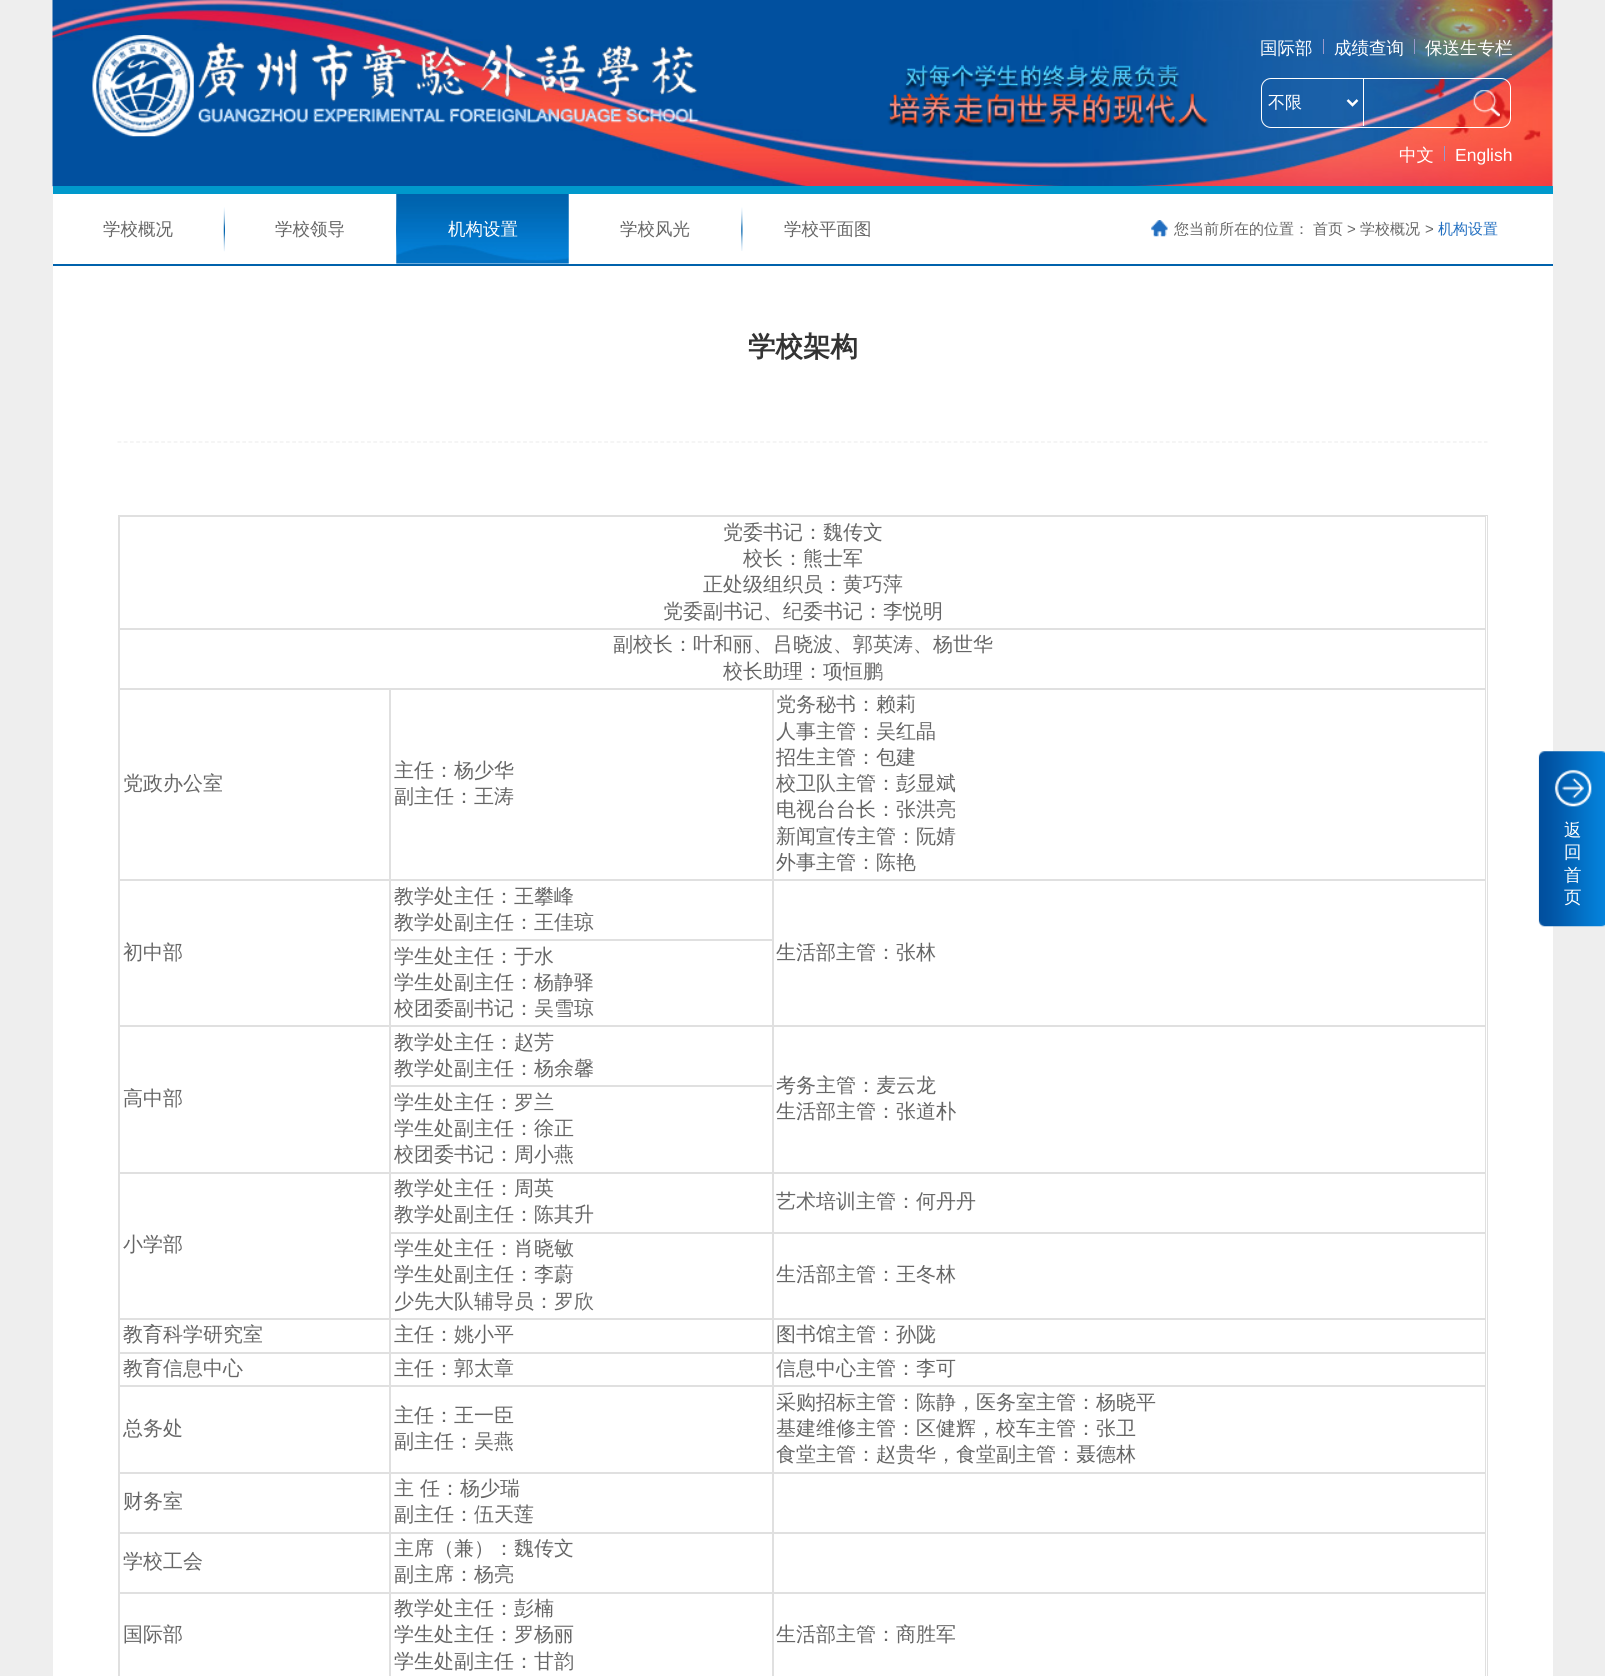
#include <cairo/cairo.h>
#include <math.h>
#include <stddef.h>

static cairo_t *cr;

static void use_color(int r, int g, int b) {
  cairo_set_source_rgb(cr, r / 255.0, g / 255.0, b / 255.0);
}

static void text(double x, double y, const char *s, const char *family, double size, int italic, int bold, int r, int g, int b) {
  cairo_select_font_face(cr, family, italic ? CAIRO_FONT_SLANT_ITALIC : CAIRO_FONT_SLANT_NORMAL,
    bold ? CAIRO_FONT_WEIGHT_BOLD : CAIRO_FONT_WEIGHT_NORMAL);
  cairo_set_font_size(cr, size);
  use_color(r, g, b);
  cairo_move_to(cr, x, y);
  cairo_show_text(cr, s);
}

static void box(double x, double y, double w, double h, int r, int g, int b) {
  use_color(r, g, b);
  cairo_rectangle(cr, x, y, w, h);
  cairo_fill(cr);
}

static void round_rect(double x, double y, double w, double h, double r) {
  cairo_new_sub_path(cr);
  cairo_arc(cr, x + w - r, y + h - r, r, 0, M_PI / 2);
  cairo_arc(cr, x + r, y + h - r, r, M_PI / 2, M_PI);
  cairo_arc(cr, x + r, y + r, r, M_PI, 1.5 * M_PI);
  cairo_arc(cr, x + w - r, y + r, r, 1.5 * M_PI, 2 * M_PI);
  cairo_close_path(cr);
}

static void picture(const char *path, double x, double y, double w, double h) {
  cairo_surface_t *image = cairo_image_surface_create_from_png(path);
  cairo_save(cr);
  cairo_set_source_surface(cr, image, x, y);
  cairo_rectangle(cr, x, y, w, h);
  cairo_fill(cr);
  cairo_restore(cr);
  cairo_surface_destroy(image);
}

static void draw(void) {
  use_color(238, 238, 238);
  cairo_paint(cr);
  picture("img_01.png", 52, 0, 1501, 187);
  box(53, 186, 1500, 8, 0, 153, 204);
  picture("img_02.png", 92, 35, 102, 102);
  picture("img_03.png", 198, 42, 501, 81);
  picture("img_04.png", 887, 65, 322, 63);
  box(1323, 39, 1, 15, 153, 153, 204);
  box(1414, 39, 1, 15, 153, 153, 204);
  round_rect(1261.5, 78.5, 249, 49, 9.5);
  use_color(255, 255, 255);
  cairo_set_line_width(cr, 1);
  cairo_stroke(cr);
  box(1363, 79, 1, 47, 255, 255, 255);
  cairo_new_path(cr);
  cairo_move_to(cr, 1347.5, 100);
  cairo_line_to(cr, 1352.5, 105);
  cairo_line_to(cr, 1357.5, 100);
  cairo_set_line_width(cr, 2.5);
  cairo_stroke(cr);
  picture("img_05.png", 1473, 90, 27, 27);
  box(1444, 146, 1, 15, 153, 153, 204);
  box(53, 194, 1500, 70, 255, 255, 255);
  box(53, 264, 1500, 2, 0, 98, 172);
  picture("img_06.png", 223, 207, 2, 45);
  picture("img_07.png", 396, 207, 1, 44);
  picture("img_08.png", 396, 194, 173, 70);
  picture("img_09.png", 741, 207, 2, 44);
  picture("img_10.png", 1151, 220, 17, 17);
  box(53, 266, 1500, 1410, 255, 255, 255);
  cairo_new_path(cr);
  cairo_move_to(cr, 117.5, 442);
  cairo_line_to(cr, 1487.5, 442);
  use_color(238, 238, 238);
  cairo_set_line_width(cr, 1.2);
  cairo_set_dash(cr, (double[]){3.75, 2.49}, 2, 0);
  cairo_stroke(cr);
  cairo_rectangle(cr, 118.5, 515.5, 1369, 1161);
  use_color(224, 224, 224);
  cairo_set_line_width(cr, 1);
  cairo_set_dash(cr, NULL, 0, 0);
  cairo_stroke(cr);
  cairo_rectangle(cr, 119.5, 516.5, 1366, 112);
  cairo_stroke(cr);
  cairo_rectangle(cr, 119.5, 629.5, 1366, 59);
  cairo_stroke(cr);
  cairo_rectangle(cr, 119.5, 689.5, 270, 190);
  cairo_stroke(cr);
  cairo_rectangle(cr, 390.5, 689.5, 382, 190);
  cairo_stroke(cr);
  cairo_rectangle(cr, 773.5, 689.5, 712, 190);
  cairo_stroke(cr);
  cairo_rectangle(cr, 390.5, 880.5, 382, 59);
  cairo_stroke(cr);
  cairo_rectangle(cr, 119.5, 880.5, 270, 145);
  cairo_stroke(cr);
  cairo_rectangle(cr, 773.5, 880.5, 712, 145);
  cairo_stroke(cr);
  cairo_rectangle(cr, 390.5, 940.5, 382, 85);
  cairo_stroke(cr);
  cairo_rectangle(cr, 390.5, 1026.5, 382, 59);
  cairo_stroke(cr);
  cairo_rectangle(cr, 119.5, 1026.5, 270, 146);
  cairo_stroke(cr);
  cairo_rectangle(cr, 773.5, 1026.5, 712, 146);
  cairo_stroke(cr);
  cairo_rectangle(cr, 390.5, 1086.5, 382, 86);
  cairo_stroke(cr);
  cairo_rectangle(cr, 390.5, 1173.5, 382, 59);
  cairo_stroke(cr);
  cairo_rectangle(cr, 773.5, 1173.5, 712, 59);
  cairo_stroke(cr);
  cairo_rectangle(cr, 119.5, 1173.5, 270, 145);
  cairo_stroke(cr);
  cairo_rectangle(cr, 390.5, 1233.5, 382, 85);
  cairo_stroke(cr);
  cairo_rectangle(cr, 773.5, 1233.5, 712, 85);
  cairo_stroke(cr);
  cairo_rectangle(cr, 119.5, 1319.5, 270, 33);
  cairo_stroke(cr);
  cairo_rectangle(cr, 390.5, 1319.5, 382, 33);
  cairo_stroke(cr);
  cairo_rectangle(cr, 773.5, 1319.5, 712, 33);
  cairo_stroke(cr);
  cairo_rectangle(cr, 119.5, 1353.5, 270, 32);
  cairo_stroke(cr);
  cairo_rectangle(cr, 390.5, 1353.5, 382, 32);
  cairo_stroke(cr);
  cairo_rectangle(cr, 773.5, 1353.5, 712, 32);
  cairo_stroke(cr);
  cairo_rectangle(cr, 119.5, 1386.5, 270, 86);
  cairo_stroke(cr);
  cairo_rectangle(cr, 390.5, 1386.5, 382, 86);
  cairo_stroke(cr);
  cairo_rectangle(cr, 773.5, 1386.5, 712, 86);
  cairo_stroke(cr);
  cairo_rectangle(cr, 119.5, 1473.5, 270, 59);
  cairo_stroke(cr);
  cairo_rectangle(cr, 390.5, 1473.5, 382, 59);
  cairo_stroke(cr);
  cairo_rectangle(cr, 773.5, 1473.5, 712, 59);
  cairo_stroke(cr);
  cairo_rectangle(cr, 119.5, 1533.5, 270, 59);
  cairo_stroke(cr);
  cairo_rectangle(cr, 390.5, 1533.5, 382, 59);
  cairo_stroke(cr);
  cairo_rectangle(cr, 773.5, 1533.5, 712, 59);
  cairo_stroke(cr);
  cairo_rectangle(cr, 119.5, 1593.5, 270, 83);
  cairo_stroke(cr);
  cairo_rectangle(cr, 390.5, 1593.5, 382, 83);
  cairo_stroke(cr);
  cairo_rectangle(cr, 773.5, 1593.5, 712, 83);
  cairo_stroke(cr);
  picture("img_11.png", 1538, 751, 67, 176);
  text(1260, 54, "国际部", "WenQuanYi Zen Hei Medium", 17.5, 0, 0, 255, 255, 255);
  text(1334, 54, "成绩查询", "WenQuanYi Zen Hei Medium", 17.5, 0, 0, 255, 255, 255);
  text(1425, 54, "保送生专栏", "WenQuanYi Zen Hei Medium", 17.5, 0, 0, 255, 255, 255);
  text(1268, 108, "不限", "WenQuanYi Zen Hei Medium", 17, 0, 0, 255, 255, 255);
  text(1399, 161, "中文", "WenQuanYi Zen Hei Medium", 17.5, 0, 0, 255, 255, 255);
  text(1455, 161, "English", "Liberation Sans", 17.5, 0, 0, 255, 255, 255);
  text(103, 235, "学校概况", "WenQuanYi Zen Hei Medium", 17.5, 0, 0, 102, 102, 102);
  text(275, 235, "学校领导", "WenQuanYi Zen Hei Medium", 17.5, 0, 0, 102, 102, 102);
  text(448, 235, "机构设置", "WenQuanYi Zen Hei Medium", 17.5, 0, 0, 255, 255, 255);
  text(620, 235, "学校风光", "WenQuanYi Zen Hei Medium", 17.5, 0, 0, 102, 102, 102);
  text(784, 235, "学校平面图", "WenQuanYi Zen Hei Medium", 17.5, 0, 0, 102, 102, 102);
  text(1174, 234, "您当前所在的位置：", "WenQuanYi Zen Hei Medium", 15, 0, 0, 102, 102, 102);
  text(1313, 234, "首页", "WenQuanYi Zen Hei Medium", 15, 0, 0, 102, 102, 102);
  text(1347, 234, ">", "Liberation Sans", 15, 0, 0, 102, 102, 102);
  text(1360, 234, "学校概况", "WenQuanYi Zen Hei Medium", 15, 0, 0, 102, 102, 102);
  text(1425, 234, ">", "Liberation Sans", 15, 0, 0, 102, 102, 102);
  text(1438, 234, "机构设置", "WenQuanYi Zen Hei Medium", 15, 0, 0, 33, 110, 192);
  text(748, 356, "学校架构", "WenQuanYi Zen Hei", 27.5, 0, 1, 51, 51, 51);
  text(723, 539, "党委书记：魏传文", "WenQuanYi Zen Hei Medium", 20, 0, 0, 102, 102, 102);
  text(743, 565, "校长：熊士军", "WenQuanYi Zen Hei Medium", 20, 0, 0, 102, 102, 102);
  text(703, 591, "正处级组织员：黄巧萍", "WenQuanYi Zen Hei Medium", 20, 0, 0, 102, 102, 102);
  text(663, 618, "党委副书记、纪委书记：李悦明", "WenQuanYi Zen Hei Medium", 20, 0, 0, 102, 102, 102);
  text(613, 651, "副校长：叶和丽、吕晓波、郭英涛、杨世华", "WenQuanYi Zen Hei Medium", 20, 0, 0, 102, 102, 102);
  text(723, 678, "校长助理：项恒鹏", "WenQuanYi Zen Hei Medium", 20, 0, 0, 102, 102, 102);
  text(123, 790, "党政办公室", "WenQuanYi Zen Hei Medium", 20, 0, 0, 102, 102, 102);
  text(394, 777, "主任：杨少华", "WenQuanYi Zen Hei Medium", 20, 0, 0, 102, 102, 102);
  text(394, 803, "副主任：王涛", "WenQuanYi Zen Hei Medium", 20, 0, 0, 102, 102, 102);
  text(776, 711, "党务秘书：赖莉", "WenQuanYi Zen Hei Medium", 20, 0, 0, 102, 102, 102);
  text(776, 738, "人事主管：吴红晶", "WenQuanYi Zen Hei Medium", 20, 0, 0, 102, 102, 102);
  text(776, 764, "招生主管：包建", "WenQuanYi Zen Hei Medium", 20, 0, 0, 102, 102, 102);
  text(776, 790, "校卫队主管：彭显斌", "WenQuanYi Zen Hei Medium", 20, 0, 0, 102, 102, 102);
  text(776, 816, "电视台台长：张洪亮", "WenQuanYi Zen Hei Medium", 20, 0, 0, 102, 102, 102);
  text(776, 843, "新闻宣传主管：阮婧", "WenQuanYi Zen Hei Medium", 20, 0, 0, 102, 102, 102);
  text(776, 869, "外事主管：陈艳", "WenQuanYi Zen Hei Medium", 20, 0, 0, 102, 102, 102);
  text(394, 903, "教学处主任：王攀峰", "WenQuanYi Zen Hei Medium", 20, 0, 0, 102, 102, 102);
  text(394, 929, "教学处副主任：王佳琼", "WenQuanYi Zen Hei Medium", 20, 0, 0, 102, 102, 102);
  text(123, 959, "初中部", "WenQuanYi Zen Hei Medium", 20, 0, 0, 102, 102, 102);
  text(776, 959, "生活部主管：张林", "WenQuanYi Zen Hei Medium", 20, 0, 0, 102, 102, 102);
  text(394, 963, "学生处主任：于水", "WenQuanYi Zen Hei Medium", 20, 0, 0, 102, 102, 102);
  text(394, 989, "学生处副主任：杨静驿", "WenQuanYi Zen Hei Medium", 20, 0, 0, 102, 102, 102);
  text(394, 1015, "校团委副书记：吴雪琼", "WenQuanYi Zen Hei Medium", 20, 0, 0, 102, 102, 102);
  text(394, 1049, "教学处主任：赵芳", "WenQuanYi Zen Hei Medium", 20, 0, 0, 102, 102, 102);
  text(394, 1075, "教学处副主任：杨余馨", "WenQuanYi Zen Hei Medium", 20, 0, 0, 102, 102, 102);
  text(123, 1105, "高中部", "WenQuanYi Zen Hei Medium", 20, 0, 0, 102, 102, 102);
  text(776, 1092, "考务主管：麦云龙", "WenQuanYi Zen Hei Medium", 20, 0, 0, 102, 102, 102);
  text(776, 1118, "生活部主管：张道朴", "WenQuanYi Zen Hei Medium", 20, 0, 0, 102, 102, 102);
  text(394, 1109, "学生处主任：罗兰", "WenQuanYi Zen Hei Medium", 20, 0, 0, 102, 102, 102);
  text(394, 1135, "学生处副主任：徐正", "WenQuanYi Zen Hei Medium", 20, 0, 0, 102, 102, 102);
  text(394, 1161, "校团委书记：周小燕", "WenQuanYi Zen Hei Medium", 20, 0, 0, 102, 102, 102);
  text(394, 1195, "教学处主任：周英", "WenQuanYi Zen Hei Medium", 20, 0, 0, 102, 102, 102);
  text(394, 1221, "教学处副主任：陈其升", "WenQuanYi Zen Hei Medium", 20, 0, 0, 102, 102, 102);
  text(776, 1208, "艺术培训主管：何丹丹", "WenQuanYi Zen Hei Medium", 20, 0, 0, 102, 102, 102);
  text(123, 1251, "小学部", "WenQuanYi Zen Hei Medium", 20, 0, 0, 102, 102, 102);
  text(394, 1255, "学生处主任：肖晓敏", "WenQuanYi Zen Hei Medium", 20, 0, 0, 102, 102, 102);
  text(394, 1281, "学生处副主任：李蔚", "WenQuanYi Zen Hei Medium", 20, 0, 0, 102, 102, 102);
  text(394, 1308, "少先大队辅导员：罗欣", "WenQuanYi Zen Hei Medium", 20, 0, 0, 102, 102, 102);
  text(776, 1281, "生活部主管：王冬林", "WenQuanYi Zen Hei Medium", 20, 0, 0, 102, 102, 102);
  text(123, 1341, "教育科学研究室", "WenQuanYi Zen Hei Medium", 20, 0, 0, 102, 102, 102);
  text(394, 1341, "主任：姚小平", "WenQuanYi Zen Hei Medium", 20, 0, 0, 102, 102, 102);
  text(776, 1341, "图书馆主管：孙陇", "WenQuanYi Zen Hei Medium", 20, 0, 0, 102, 102, 102);
  text(123, 1375, "教育信息中心", "WenQuanYi Zen Hei Medium", 20, 0, 0, 102, 102, 102);
  text(394, 1375, "主任：郭太章", "WenQuanYi Zen Hei Medium", 20, 0, 0, 102, 102, 102);
  text(776, 1375, "信息中心主管：李可", "WenQuanYi Zen Hei Medium", 20, 0, 0, 102, 102, 102);
  text(123, 1435, "总务处", "WenQuanYi Zen Hei Medium", 20, 0, 0, 102, 102, 102);
  text(394, 1422, "主任：王一臣", "WenQuanYi Zen Hei Medium", 20, 0, 0, 102, 102, 102);
  text(394, 1448, "副主任：吴燕", "WenQuanYi Zen Hei Medium", 20, 0, 0, 102, 102, 102);
  text(776, 1409, "采购招标主管：陈静，医务室主管：杨晓平", "WenQuanYi Zen Hei Medium", 20, 0, 0, 102, 102, 102);
  text(776, 1435, "基建维修主管：区健辉，校车主管：张卫", "WenQuanYi Zen Hei Medium", 20, 0, 0, 102, 102, 102);
  text(776, 1461, "食堂主管：赵贵华，食堂副主管：聂德林", "WenQuanYi Zen Hei Medium", 20, 0, 0, 102, 102, 102);
  text(123, 1508, "财务室", "WenQuanYi Zen Hei Medium", 20, 0, 0, 102, 102, 102);
  text(394, 1495, "主 任：杨少瑞", "WenQuanYi Zen Hei Medium", 20, 0, 0, 102, 102, 102);
  text(394, 1521, "副主任：伍天莲", "WenQuanYi Zen Hei Medium", 20, 0, 0, 102, 102, 102);
  text(123, 1568, "学校工会", "WenQuanYi Zen Hei Medium", 20, 0, 0, 102, 102, 102);
  text(394, 1555, "主席（兼）：魏传文", "WenQuanYi Zen Hei Medium", 20, 0, 0, 102, 102, 102);
  text(394, 1581, "副主席：杨亮", "WenQuanYi Zen Hei Medium", 20, 0, 0, 102, 102, 102);
  text(123, 1641, "国际部", "WenQuanYi Zen Hei Medium", 20, 0, 0, 102, 102, 102);
  text(394, 1615, "教学处主任：彭楠", "WenQuanYi Zen Hei Medium", 20, 0, 0, 102, 102, 102);
  text(394, 1641, "学生处主任：罗杨丽", "WenQuanYi Zen Hei Medium", 20, 0, 0, 102, 102, 102);
  text(394, 1668, "学生处副主任：甘韵", "WenQuanYi Zen Hei Medium", 20, 0, 0, 102, 102, 102);
  text(776, 1641, "生活部主管：商胜军", "WenQuanYi Zen Hei Medium", 20, 0, 0, 102, 102, 102);
  text(1564, 836, "返", "WenQuanYi Zen Hei Medium", 17.5, 0, 0, 255, 255, 255);
  text(1564, 858, "回", "WenQuanYi Zen Hei Medium", 17.5, 0, 0, 255, 255, 255);
  text(1564, 881, "首", "WenQuanYi Zen Hei Medium", 17.5, 0, 0, 255, 255, 255);
  text(1564, 903, "页", "WenQuanYi Zen Hei Medium", 17.5, 0, 0, 255, 255, 255);
}

int main(void) {
  cairo_surface_t *surface = cairo_image_surface_create(CAIRO_FORMAT_RGB24, 1605, 1676);
  cr = cairo_create(surface);
  cairo_font_options_t *options = cairo_font_options_create();
  cairo_font_options_set_hint_metrics(options, CAIRO_HINT_METRICS_OFF);
  cairo_font_options_set_hint_style(options, CAIRO_HINT_STYLE_NONE);
  cairo_set_font_options(cr, options);
  cairo_set_miter_limit(cr, 4);
  draw();
  cairo_surface_write_to_png(surface, "out.png");
  cairo_font_options_destroy(options);
  cairo_destroy(cr);
  cairo_surface_destroy(surface);
  return 0;
}
